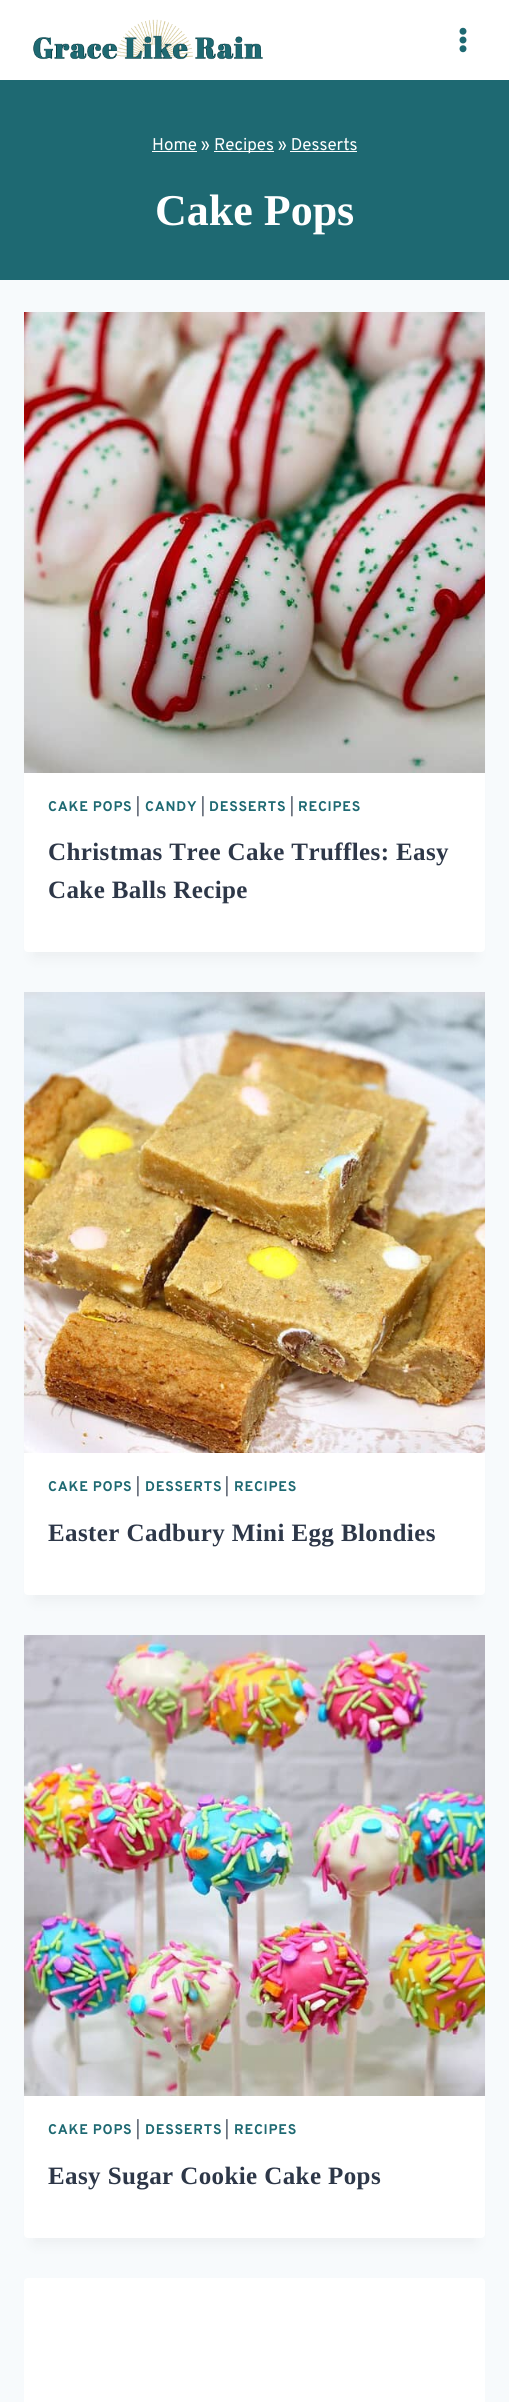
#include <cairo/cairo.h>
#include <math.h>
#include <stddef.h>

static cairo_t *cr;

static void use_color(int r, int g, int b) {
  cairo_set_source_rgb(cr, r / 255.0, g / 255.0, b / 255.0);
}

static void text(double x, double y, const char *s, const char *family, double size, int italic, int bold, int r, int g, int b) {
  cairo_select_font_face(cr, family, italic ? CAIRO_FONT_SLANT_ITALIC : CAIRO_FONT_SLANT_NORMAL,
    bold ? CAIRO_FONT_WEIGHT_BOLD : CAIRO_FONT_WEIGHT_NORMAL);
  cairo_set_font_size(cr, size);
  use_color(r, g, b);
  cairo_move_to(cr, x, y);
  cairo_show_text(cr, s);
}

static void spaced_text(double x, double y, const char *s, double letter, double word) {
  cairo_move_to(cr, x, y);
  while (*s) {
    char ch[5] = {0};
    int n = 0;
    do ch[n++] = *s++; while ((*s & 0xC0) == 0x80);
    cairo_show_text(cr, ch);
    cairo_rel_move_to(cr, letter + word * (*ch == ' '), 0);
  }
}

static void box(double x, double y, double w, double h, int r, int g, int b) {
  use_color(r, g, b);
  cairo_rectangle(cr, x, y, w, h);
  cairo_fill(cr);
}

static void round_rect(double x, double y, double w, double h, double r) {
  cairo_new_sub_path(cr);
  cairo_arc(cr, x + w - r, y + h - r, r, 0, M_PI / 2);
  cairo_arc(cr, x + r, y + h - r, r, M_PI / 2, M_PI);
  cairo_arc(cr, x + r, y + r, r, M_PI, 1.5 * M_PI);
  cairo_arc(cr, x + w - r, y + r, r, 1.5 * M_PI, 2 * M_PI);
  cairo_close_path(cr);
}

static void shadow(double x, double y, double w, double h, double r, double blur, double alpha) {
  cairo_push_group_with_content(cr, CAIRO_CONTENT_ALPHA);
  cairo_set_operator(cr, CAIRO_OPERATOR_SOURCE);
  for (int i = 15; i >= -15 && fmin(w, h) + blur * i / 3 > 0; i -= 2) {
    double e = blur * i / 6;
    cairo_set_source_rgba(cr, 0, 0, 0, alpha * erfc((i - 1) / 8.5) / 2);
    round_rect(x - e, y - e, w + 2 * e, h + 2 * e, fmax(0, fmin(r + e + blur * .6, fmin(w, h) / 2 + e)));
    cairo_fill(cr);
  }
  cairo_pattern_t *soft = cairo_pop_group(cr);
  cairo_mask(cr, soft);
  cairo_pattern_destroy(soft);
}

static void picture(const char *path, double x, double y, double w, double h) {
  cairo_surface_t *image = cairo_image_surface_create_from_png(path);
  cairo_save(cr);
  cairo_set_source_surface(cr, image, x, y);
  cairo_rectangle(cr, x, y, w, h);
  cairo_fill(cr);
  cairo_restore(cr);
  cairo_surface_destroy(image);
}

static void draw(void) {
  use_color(247, 250, 252);
  cairo_paint(cr);
  box(0, 0, 509, 80, 255, 255, 255);
  picture("img_01.png", 33, 19, 230, 41);
  picture("img_02.png", 459, 27, 8, 26);
  box(0, 80, 509, 200, 30, 105, 114);
  box(152, 151, 45, 1, 255, 255, 255);
  box(214, 151, 60, 1, 255, 255, 255);
  box(290, 151, 67, 1, 255, 255, 255);
  use_color(0, 0, 0);
  shadow(34, 337, 441, 620, 0, 7.5, 0.05);
  use_color(255, 255, 255);
  round_rect(24, 312, 461, 640, 4);
  cairo_fill(cr);
  picture("img_03.png", 24, 312, 461, 461);
  use_color(0, 0, 0);
  shadow(34, 1017, 441, 583, 0, 7.5, 0.05);
  use_color(255, 255, 255);
  round_rect(24, 992, 461, 603, 4);
  cairo_fill(cr);
  picture("img_04.png", 24, 992, 461, 461);
  use_color(0, 0, 0);
  shadow(34, 1660, 441, 583, 0, 7.5, 0.05);
  use_color(255, 255, 255);
  round_rect(24, 1635, 461, 603, 4);
  cairo_fill(cr);
  picture("img_05.png", 24, 1635, 461, 461);
  round_rect(24, 2278, 461, 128, 4);
  cairo_fill(cr);
  text(152, 150, "Home »", "Overpass", 17, 0, 0, 255, 255, 255);
  text(214, 150, "Recipes » Desserts", "Overpass", 17, 0, 0, 255, 255, 255);
  text(155, 225, "Cake Pops", "Liberation Serif", 44, 0, 1, 255, 255, 255);
  cairo_select_font_face(cr, "Overpass", CAIRO_FONT_SLANT_NORMAL, CAIRO_FONT_WEIGHT_BOLD);
  cairo_set_font_size(cr, 14);
  use_color(30, 105, 114);
  spaced_text(48, 811, "CAKE POPS", 0.75, 0);
  cairo_select_font_face(cr, "Overpass", CAIRO_FONT_SLANT_NORMAL, CAIRO_FONT_WEIGHT_NORMAL);
  use_color(45, 55, 72);
  spaced_text(136, 811, "|", 0.75, 0);
  cairo_select_font_face(cr, "Overpass", CAIRO_FONT_SLANT_NORMAL, CAIRO_FONT_WEIGHT_BOLD);
  use_color(30, 105, 114);
  spaced_text(145, 811, "CANDY", 0.75, 0);
  cairo_select_font_face(cr, "Overpass", CAIRO_FONT_SLANT_NORMAL, CAIRO_FONT_WEIGHT_NORMAL);
  use_color(45, 55, 72);
  spaced_text(201, 811, "|", 0.75, 0);
  cairo_select_font_face(cr, "Overpass", CAIRO_FONT_SLANT_NORMAL, CAIRO_FONT_WEIGHT_BOLD);
  use_color(30, 105, 114);
  spaced_text(209, 811, "DESSERTS", 0.75, 0);
  cairo_select_font_face(cr, "Overpass", CAIRO_FONT_SLANT_NORMAL, CAIRO_FONT_WEIGHT_NORMAL);
  use_color(45, 55, 72);
  spaced_text(290, 811, "|", 0.75, 0);
  cairo_select_font_face(cr, "Overpass", CAIRO_FONT_SLANT_NORMAL, CAIRO_FONT_WEIGHT_BOLD);
  use_color(30, 105, 114);
  spaced_text(298, 811, "RECIPES", 0.75, 0);
  cairo_select_font_face(cr, "Liberation Serif", CAIRO_FONT_SLANT_NORMAL, CAIRO_FONT_WEIGHT_BOLD);
  cairo_set_font_size(cr, 25);
  use_color(45, 55, 72);
  spaced_text(48, 860, "Christmas Tree Cake Truffles: Easy", 0.4, 0);
  spaced_text(48, 898, "Cake Balls Recipe", 0.4, 0);
  cairo_select_font_face(cr, "Overpass", CAIRO_FONT_SLANT_NORMAL, CAIRO_FONT_WEIGHT_BOLD);
  cairo_set_font_size(cr, 14);
  use_color(30, 105, 114);
  spaced_text(48, 1491, "CAKE POPS", 0.75, 0);
  cairo_select_font_face(cr, "Overpass", CAIRO_FONT_SLANT_NORMAL, CAIRO_FONT_WEIGHT_NORMAL);
  use_color(45, 55, 72);
  spaced_text(136, 1491, "|", 0.75, 0);
  cairo_select_font_face(cr, "Overpass", CAIRO_FONT_SLANT_NORMAL, CAIRO_FONT_WEIGHT_BOLD);
  use_color(30, 105, 114);
  spaced_text(145, 1491, "DESSERTS", 0.75, 0);
  cairo_select_font_face(cr, "Overpass", CAIRO_FONT_SLANT_NORMAL, CAIRO_FONT_WEIGHT_NORMAL);
  use_color(45, 55, 72);
  spaced_text(225, 1491, "|", 0.75, 0);
  cairo_select_font_face(cr, "Overpass", CAIRO_FONT_SLANT_NORMAL, CAIRO_FONT_WEIGHT_BOLD);
  use_color(30, 105, 114);
  spaced_text(234, 1491, "RECIPES", 0.75, 0);
  cairo_select_font_face(cr, "Liberation Serif", CAIRO_FONT_SLANT_NORMAL, CAIRO_FONT_WEIGHT_BOLD);
  cairo_set_font_size(cr, 25);
  use_color(45, 55, 72);
  spaced_text(48, 1541, "Easter Cadbury Mini Egg Blondies", 0.4, 0);
  cairo_select_font_face(cr, "Overpass", CAIRO_FONT_SLANT_NORMAL, CAIRO_FONT_WEIGHT_BOLD);
  cairo_set_font_size(cr, 14);
  use_color(30, 105, 114);
  spaced_text(48, 2134, "CAKE POPS", 0.75, 0);
  cairo_select_font_face(cr, "Overpass", CAIRO_FONT_SLANT_NORMAL, CAIRO_FONT_WEIGHT_NORMAL);
  use_color(45, 55, 72);
  spaced_text(136, 2134, "|", 0.75, 0);
  cairo_select_font_face(cr, "Overpass", CAIRO_FONT_SLANT_NORMAL, CAIRO_FONT_WEIGHT_BOLD);
  use_color(30, 105, 114);
  spaced_text(145, 2134, "DESSERTS", 0.75, 0);
  cairo_select_font_face(cr, "Overpass", CAIRO_FONT_SLANT_NORMAL, CAIRO_FONT_WEIGHT_NORMAL);
  use_color(45, 55, 72);
  spaced_text(225, 2134, "|", 0.75, 0);
  cairo_select_font_face(cr, "Overpass", CAIRO_FONT_SLANT_NORMAL, CAIRO_FONT_WEIGHT_BOLD);
  use_color(30, 105, 114);
  spaced_text(234, 2134, "RECIPES", 0.75, 0);
  cairo_select_font_face(cr, "Liberation Serif", CAIRO_FONT_SLANT_NORMAL, CAIRO_FONT_WEIGHT_BOLD);
  cairo_set_font_size(cr, 25);
  use_color(45, 55, 72);
  spaced_text(48, 2184, "Easy Sugar Cookie Cake Pops", 0.4, 0);
}

int main(void) {
  cairo_surface_t *surface = cairo_image_surface_create(CAIRO_FORMAT_RGB24, 509, 2402);
  cr = cairo_create(surface);
  cairo_font_options_t *options = cairo_font_options_create();
  cairo_font_options_set_hint_metrics(options, CAIRO_HINT_METRICS_OFF);
  cairo_font_options_set_hint_style(options, CAIRO_HINT_STYLE_NONE);
  cairo_set_font_options(cr, options);
  cairo_set_miter_limit(cr, 4);
  draw();
  cairo_surface_write_to_png(surface, "out.png");
  cairo_font_options_destroy(options);
  cairo_destroy(cr);
  cairo_surface_destroy(surface);
  return 0;
}
